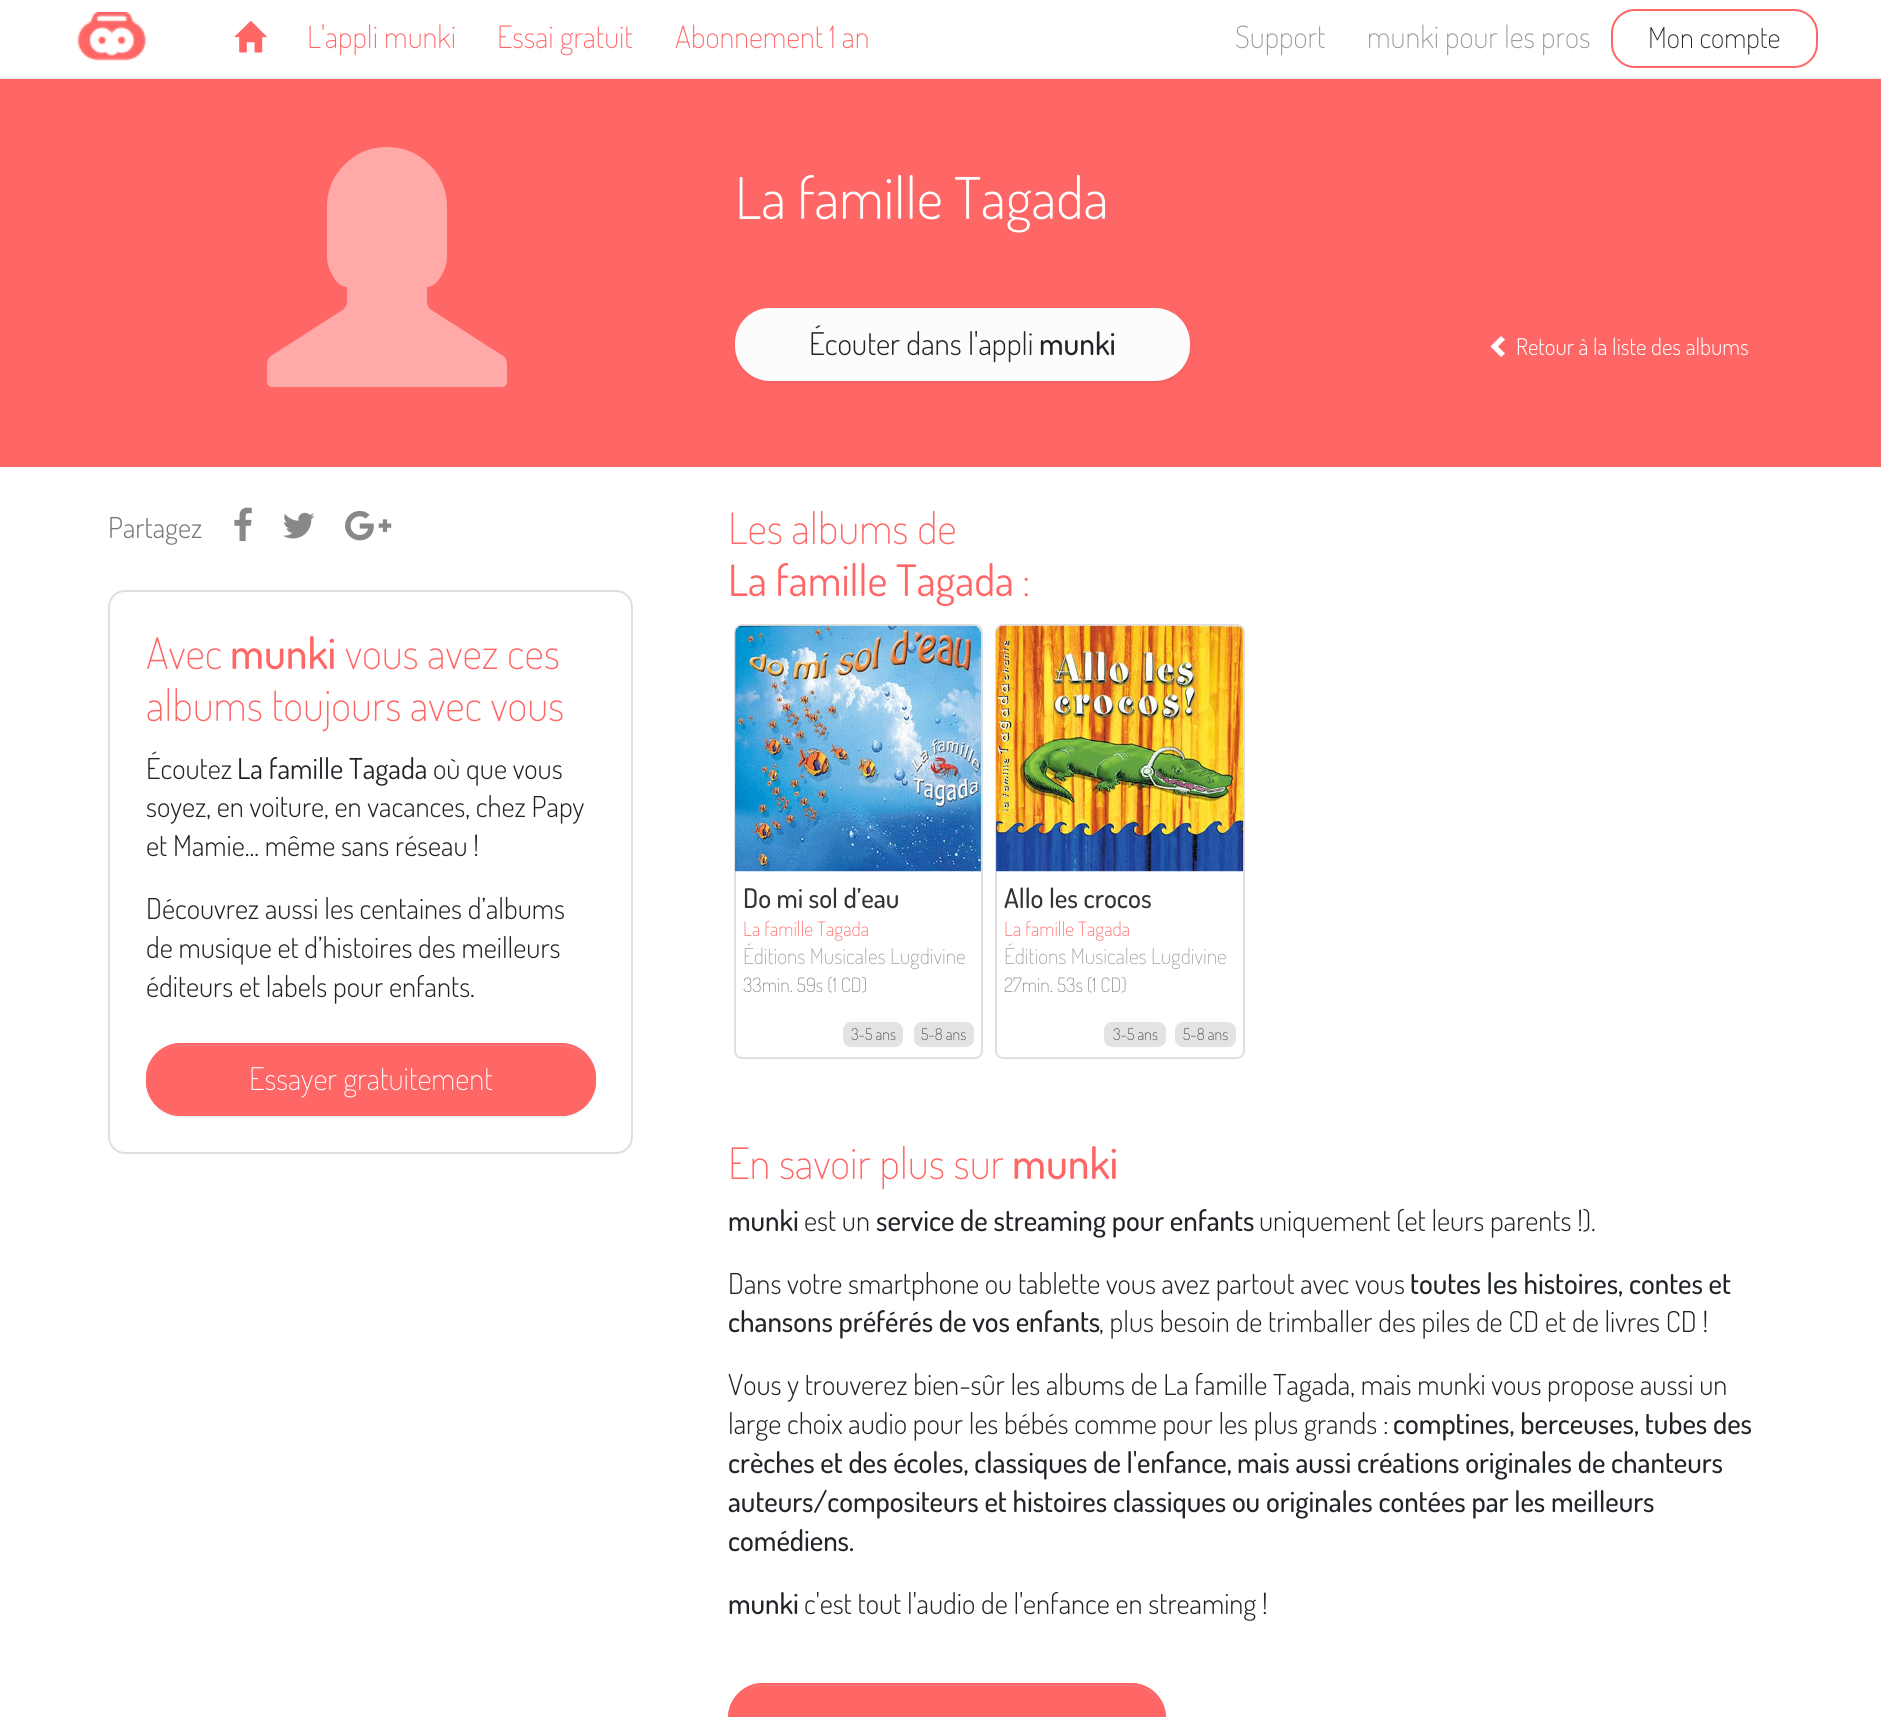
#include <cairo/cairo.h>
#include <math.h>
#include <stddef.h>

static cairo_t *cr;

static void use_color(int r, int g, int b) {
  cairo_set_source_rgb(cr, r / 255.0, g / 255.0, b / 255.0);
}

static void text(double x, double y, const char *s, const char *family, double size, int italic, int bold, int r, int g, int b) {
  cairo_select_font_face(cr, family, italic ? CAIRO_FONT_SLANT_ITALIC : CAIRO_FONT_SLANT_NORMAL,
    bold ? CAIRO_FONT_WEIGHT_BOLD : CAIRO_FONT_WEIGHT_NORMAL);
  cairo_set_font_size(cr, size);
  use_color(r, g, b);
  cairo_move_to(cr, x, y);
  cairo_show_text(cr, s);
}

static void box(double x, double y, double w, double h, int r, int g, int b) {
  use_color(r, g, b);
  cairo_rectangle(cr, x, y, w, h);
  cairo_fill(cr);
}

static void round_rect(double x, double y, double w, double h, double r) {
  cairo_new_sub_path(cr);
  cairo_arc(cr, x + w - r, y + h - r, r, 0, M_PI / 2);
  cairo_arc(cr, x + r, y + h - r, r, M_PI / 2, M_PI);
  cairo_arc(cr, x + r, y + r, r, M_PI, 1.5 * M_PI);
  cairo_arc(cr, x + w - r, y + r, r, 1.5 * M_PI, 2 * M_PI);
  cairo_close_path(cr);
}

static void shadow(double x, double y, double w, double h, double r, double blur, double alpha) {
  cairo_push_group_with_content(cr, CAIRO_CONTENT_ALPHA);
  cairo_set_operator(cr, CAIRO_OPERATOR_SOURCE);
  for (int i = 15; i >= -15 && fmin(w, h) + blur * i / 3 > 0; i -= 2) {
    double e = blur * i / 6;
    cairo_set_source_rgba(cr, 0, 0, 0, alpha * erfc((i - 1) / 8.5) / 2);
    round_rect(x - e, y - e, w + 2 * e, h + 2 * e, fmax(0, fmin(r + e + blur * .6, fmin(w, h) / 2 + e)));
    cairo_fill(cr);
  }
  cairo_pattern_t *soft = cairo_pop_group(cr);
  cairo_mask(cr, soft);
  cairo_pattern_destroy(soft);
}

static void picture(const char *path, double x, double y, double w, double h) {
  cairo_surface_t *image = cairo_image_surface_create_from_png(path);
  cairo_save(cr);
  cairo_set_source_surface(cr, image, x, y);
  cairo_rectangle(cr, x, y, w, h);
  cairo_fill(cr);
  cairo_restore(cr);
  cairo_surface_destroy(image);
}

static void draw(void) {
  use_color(255, 255, 255);
  cairo_paint(cr);
  box(0, 77, 1881, 2, 238, 238, 238);
  picture("img_01.png", 77, 12, 69, 49);
  picture("img_02.png", 234, 21, 33, 32);
  round_rect(1612, 10, 205, 57, 23);
  use_color(255, 102, 102);
  cairo_stroke(cr);
  box(0, 79, 1881, 388, 255, 102, 102);
  picture("img_03.png", 267, 147, 240, 240);
  use_color(0, 0, 0);
  shadow(735, 309, 455, 74, 35, 1, 0.07);
  use_color(252, 252, 252);
  round_rect(736, 309, 453, 71, 34);
  cairo_fill_preserve(cr);
  cairo_stroke(cr);
  use_color(255, 255, 255);
  cairo_new_path(cr);
  cairo_move_to(cr, 1505, 339.5);
  cairo_line_to(cr, 1498, 346.5);
  cairo_line_to(cr, 1505, 353.5);
  cairo_line_to(cr, 1501, 357);
  cairo_line_to(cr, 1490.5, 346.5);
  cairo_line_to(cr, 1501, 336);
  cairo_close_path(cr);
  cairo_fill(cr);
  picture("img_04.png", 234, 507, 18, 35);
  picture("img_05.png", 283, 512, 32, 27);
  picture("img_06.png", 345, 510, 47, 31);
  round_rect(109, 591, 523, 562, 16);
  use_color(223, 223, 223);
  cairo_stroke(cr);
  use_color(0, 0, 0);
  shadow(146, 1044, 450, 74, 35, 1, 0.07);
  use_color(255, 102, 102);
  round_rect(146, 1043, 450, 73, 35);
  cairo_fill(cr);
  use_color(255, 125, 125);
  cairo_new_path(cr);
  cairo_move_to(cr, 180, 1046);
  cairo_line_to(cr, 561, 1046);
  cairo_curve_to(cr, 579, 1046, 594, 1060, 594, 1078);
  cairo_line_to(cr, 594, 1077);
  cairo_curve_to(cr, 594, 1059, 579, 1044, 561, 1044);
  cairo_line_to(cr, 180, 1044);
  cairo_curve_to(cr, 162, 1044, 147, 1059, 147, 1077);
  cairo_line_to(cr, 147, 1078);
  cairo_curve_to(cr, 147, 1060, 162, 1046, 180, 1046);
  cairo_close_path(cr);
  cairo_fill(cr);
  round_rect(147, 1044, 448, 71, 34);
  use_color(255, 102, 102);
  cairo_stroke(cr);
  round_rect(735, 625, 247, 433, 7);
  use_color(223, 223, 223);
  cairo_stroke(cr);
  picture("img_07.png", 735, 625, 246, 247);
  use_color(227, 227, 227);
  round_rect(843, 1022, 60, 25, 8);
  cairo_fill(cr);
  round_rect(914, 1022, 60, 25, 8);
  cairo_fill(cr);
  round_rect(996, 625, 248, 433, 7);
  use_color(223, 223, 223);
  cairo_stroke(cr);
  picture("img_08.png", 996, 625, 248, 247);
  use_color(227, 227, 227);
  round_rect(1104, 1022, 62, 25, 8);
  cairo_fill(cr);
  round_rect(1175, 1022, 61, 25, 8);
  cairo_fill(cr);
  use_color(0, 0, 0);
  shadow(728, 1685, 438, 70, 35, 1, 0.07);
  use_color(255, 102, 102);
  round_rect(728, 1683, 438, 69, 35);
  cairo_fill(cr);
  use_color(255, 125, 125);
  cairo_new_path(cr);
  cairo_move_to(cr, 762, 1686);
  cairo_line_to(cr, 1131, 1686);
  cairo_curve_to(cr, 1149, 1686, 1164, 1701, 1164, 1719);
  cairo_line_to(cr, 1164, 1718);
  cairo_curve_to(cr, 1164, 1700, 1149, 1685, 1131, 1685);
  cairo_line_to(cr, 762, 1685);
  cairo_curve_to(cr, 744, 1685, 729, 1700, 729, 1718);
  cairo_line_to(cr, 729, 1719);
  cairo_curve_to(cr, 729, 1701, 744, 1686, 762, 1686);
  cairo_close_path(cr);
  cairo_fill(cr);
  round_rect(729, 1684, 436, 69, 34);
  use_color(255, 102, 102);
  cairo_stroke(cr);
  text(307, 48, "L'appli munki", "Dosis ExtraLight", 30.75, 0, 0, 255, 102, 102);
  text(497, 48, "Essai gratuit", "Dosis ExtraLight", 30.75, 0, 0, 255, 102, 102);
  text(675, 48, "Abonnement 1 an", "Dosis ExtraLight", 30.75, 0, 0, 255, 102, 102);
  text(1235, 48, "Support", "Dosis ExtraLight", 30.75, 0, 0, 153, 153, 153);
  text(1367, 48, "munki pour les pros", "Dosis ExtraLight", 30.75, 0, 0, 153, 153, 153);
  text(1648, 48, "Mon compte", "Dosis ExtraLight", 28.8, 0, 0, 33, 37, 41);
  text(735, 219, "La famille Tagada", "Dosis Light", 57.5, 0, 0, 255, 255, 255);
  text(809, 355, "Écouter dans l'appli", "Dosis Light", 31.25, 0, 0, 33, 37, 41);
  text(1039, 355, "munki", "Dosis Medium", 31.25, 0, 0, 33, 37, 41);
  text(1516, 355, "Retour à la liste des albums", "Dosis Light", 23, 0, 0, 255, 255, 255);
  text(108, 538, "Partagez", "Dosis Light", 28.8, 0, 0, 119, 119, 119);
  text(146, 669, "Avec", "Dosis ExtraLight", 43.25, 0, 0, 255, 102, 102);
  text(230, 669, "munki", "Dosis Medium", 43.25, 0, 0, 255, 102, 102);
  text(345, 669, "vous avez ces", "Dosis ExtraLight", 43.25, 0, 0, 255, 102, 102);
  text(146, 721, "albums toujours avec vous", "Dosis ExtraLight", 43.25, 0, 0, 255, 102, 102);
  text(146, 779, "Écoutez", "Dosis Light", 28.8, 0, 0, 33, 37, 41);
  text(237, 779, "La famille Tagada", "Dosis", 28.8, 0, 0, 33, 37, 41);
  text(433, 779, "où que vous", "Dosis Light", 28.8, 0, 0, 33, 37, 41);
  text(146, 817, "soyez, en voiture, en vacances, chez Papy", "Dosis Light", 28.8, 0, 0, 33, 37, 41);
  text(146, 856, "et Mamie... même sans réseau !", "Dosis Light", 28.8, 0, 0, 33, 37, 41);
  text(146, 919, "Découvrez aussi les centaines d’albums", "Dosis Light", 28.8, 0, 0, 33, 37, 41);
  text(146, 958, "de musique et d’histoires des meilleurs", "Dosis Light", 28.8, 0, 0, 33, 37, 41);
  text(146, 997, "éditeurs et labels pour enfants.", "Dosis Light", 28.8, 0, 0, 33, 37, 41);
  text(249, 1090, "Essayer gratuitement", "Dosis ExtraLight", 31.25, 0, 0, 255, 255, 255);
  text(728, 544, "Les albums de", "Dosis ExtraLight", 43.25, 0, 0, 255, 102, 102);
  text(728, 596, "La famille Tagada", "Dosis", 43.25, 0, 0, 255, 102, 102);
  text(1022, 596, ":", "Dosis ExtraLight", 43.25, 0, 0, 255, 102, 102);
  text(743, 908, "Do mi sol d’eau", "Dosis Medium", 27, 0, 0, 51, 51, 51);
  text(743, 936, "La famille Tagada", "Dosis ExtraLight", 19.75, 0, 0, 255, 102, 102);
  text(743, 964, "Éditions Musicales Lugdivine", "Dosis ExtraLight", 21.6, 0, 0, 159, 159, 159);
  text(743, 992, "33min. 59s (1 CD)", "Dosis ExtraLight", 19.75, 0, 0, 136, 136, 136);
  text(851, 1040, "3-5 ans", "Dosis ExtraLight", 16, 0, 0, 68, 68, 68);
  text(921, 1040, "5-8 ans", "Dosis ExtraLight", 16, 0, 0, 68, 68, 68);
  text(1004, 908, "Allo les crocos", "Dosis Medium", 27, 0, 0, 51, 51, 51);
  text(1004, 936, "La famille Tagada", "Dosis ExtraLight", 19.75, 0, 0, 255, 102, 102);
  text(1004, 964, "Éditions Musicales Lugdivine", "Dosis ExtraLight", 21.6, 0, 0, 159, 159, 159);
  text(1004, 992, "27min. 53s (1 CD)", "Dosis ExtraLight", 19.75, 0, 0, 136, 136, 136);
  text(1113, 1040, "3-5 ans", "Dosis ExtraLight", 16, 0, 0, 68, 68, 68);
  text(1183, 1040, "5-8 ans", "Dosis ExtraLight", 16, 0, 0, 68, 68, 68);
  text(728, 1179, "En savoir plus sur", "Dosis ExtraLight", 43.25, 0, 0, 255, 102, 102);
  text(1012, 1179, "munki", "Dosis Medium", 43.25, 0, 0, 255, 102, 102);
  text(728, 1231, "munki", "Dosis Medium", 28.8, 0, 0, 33, 37, 41);
  text(804, 1231, "est un", "Dosis Light", 28.8, 0, 0, 33, 37, 41);
  text(876, 1231, "service de streaming pour enfants", "Dosis Medium", 28.8, 0, 0, 33, 37, 41);
  text(1259, 1231, "uniquement (et leurs parents !).", "Dosis Light", 28.8, 0, 0, 33, 37, 41);
  text(728, 1294, "Dans votre smartphone ou tablette vous avez partout avec vous", "Dosis Light", 28.8, 0, 0, 33, 37, 41);
  text(1410, 1294, "toutes les histoires, contes et", "Dosis Medium", 28.8, 0, 0, 33, 37, 41);
  text(728, 1332, "chansons préférés de vos enfants", "Dosis Medium", 28.8, 0, 0, 33, 37, 41);
  text(1099, 1332, ", plus besoin de trimballer des piles de CD et de livres CD !", "Dosis Light", 28.8, 0, 0, 33, 37, 41);
  text(728, 1395, "Vous y trouverez bien-sûr les albums de La famille Tagada, mais munki vous propose aussi un", "Dosis Light", 28.8, 0, 0, 33, 37, 41);
  text(728, 1434, "large choix audio pour les bébés comme pour les plus grands :", "Dosis Light", 28.8, 0, 0, 33, 37, 41);
  text(1393, 1434, "comptines, berceuses, tubes des", "Dosis Medium", 28.8, 0, 0, 33, 37, 41);
  text(728, 1473, "crèches et des écoles, classiques de l'enfance,", "Dosis Medium", 28.8, 0, 0, 33, 37, 41);
  text(1237, 1473, "mais aussi créations originales de chanteurs", "Dosis Medium", 28.8, 0, 0, 33, 37, 41);
  text(728, 1512, "auteurs/compositeurs et histoires classiques ou originales contées par les meilleurs", "Dosis Medium", 28.8, 0, 0, 33, 37, 41);
  text(728, 1551, "comédiens.", "Dosis Medium", 28.8, 0, 0, 33, 37, 41);
  text(728, 1614, "munki", "Dosis Medium", 28.8, 0, 0, 33, 37, 41);
  text(804, 1614, "c'est tout l'audio de l'enfance en streaming !", "Dosis Light", 28.8, 0, 0, 33, 37, 41);
}

int main(void) {
  cairo_surface_t *surface = cairo_image_surface_create(CAIRO_FORMAT_RGB24, 1881, 1717);
  cr = cairo_create(surface);
  cairo_font_options_t *options = cairo_font_options_create();
  cairo_font_options_set_hint_metrics(options, CAIRO_HINT_METRICS_OFF);
  cairo_font_options_set_hint_style(options, CAIRO_HINT_STYLE_NONE);
  cairo_set_font_options(cr, options);
  cairo_set_miter_limit(cr, 4);
  draw();
  cairo_surface_write_to_png(surface, "out.png");
  cairo_font_options_destroy(options);
  cairo_destroy(cr);
  cairo_surface_destroy(surface);
  return 0;
}
